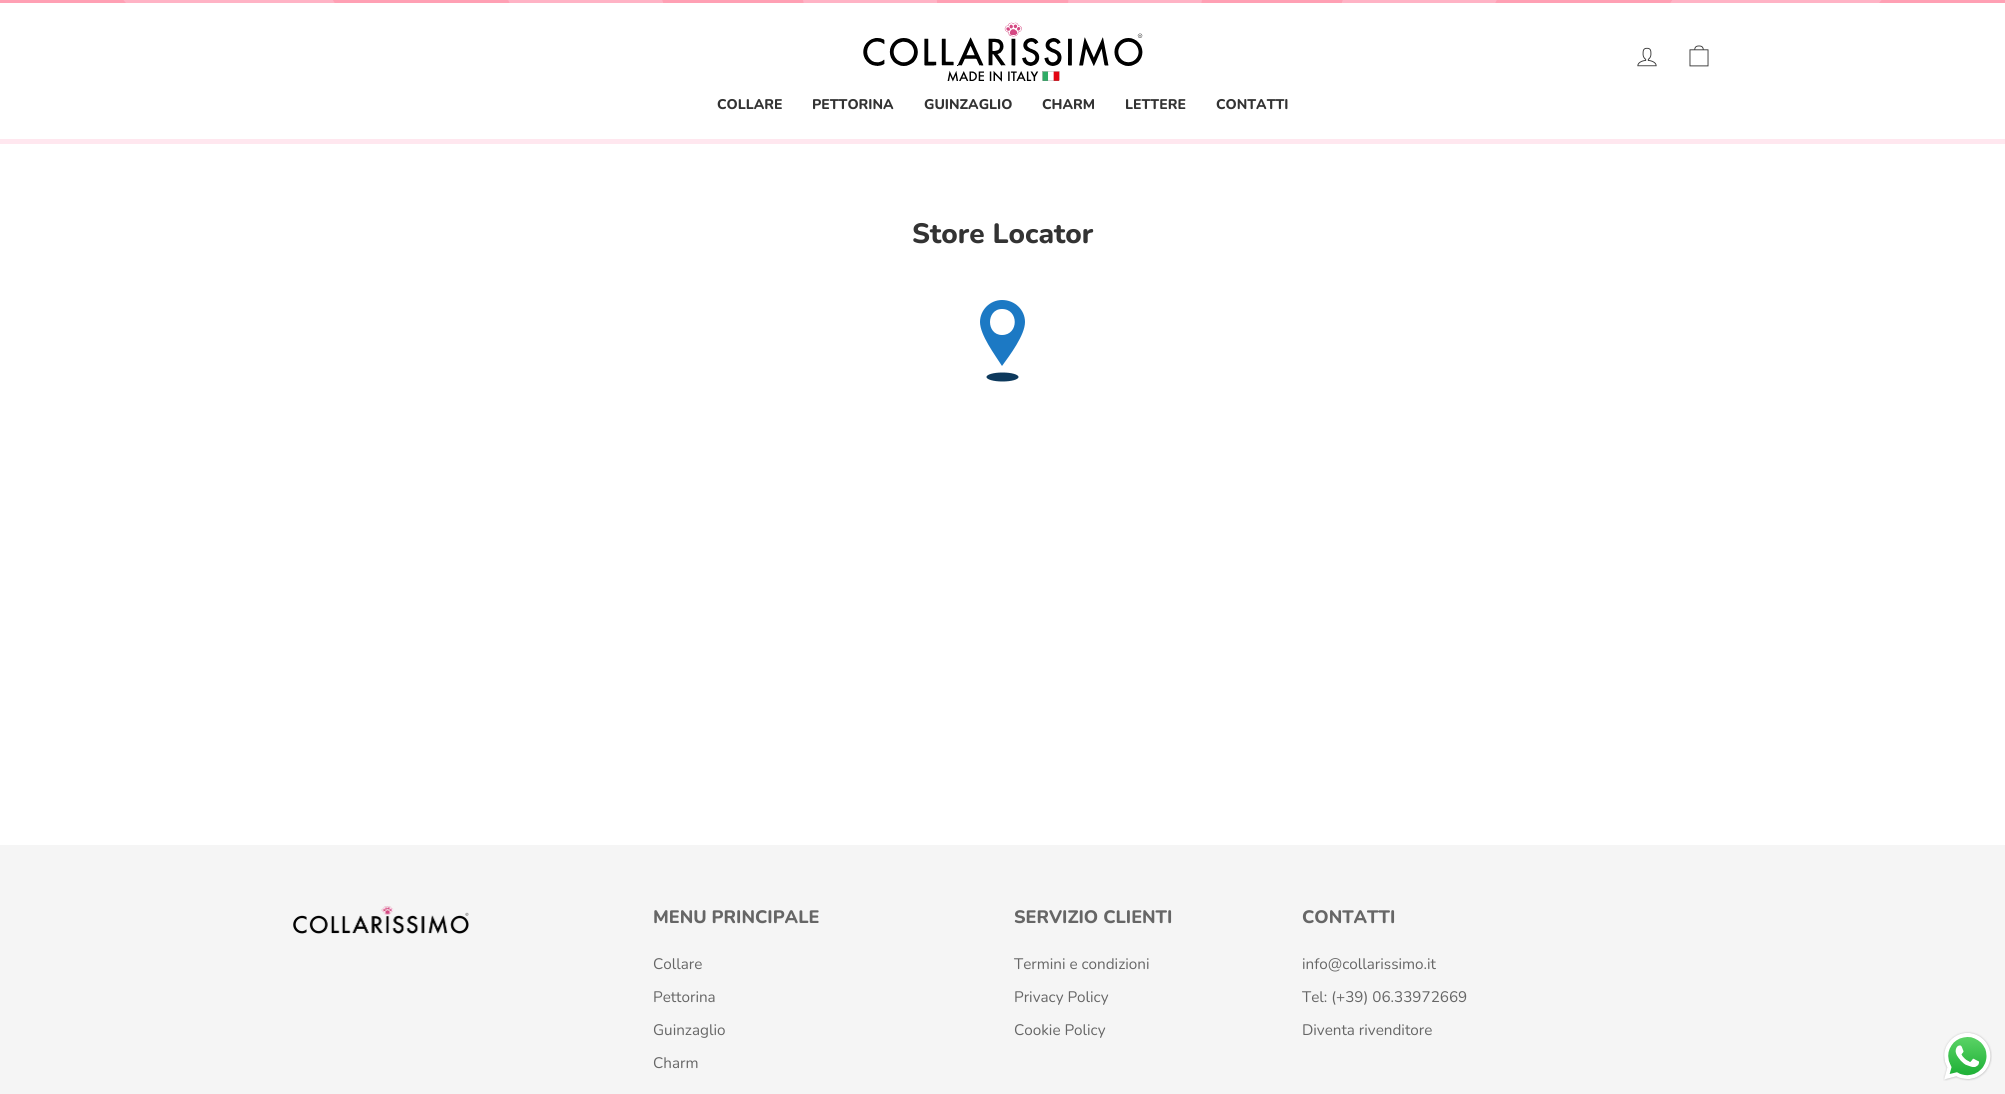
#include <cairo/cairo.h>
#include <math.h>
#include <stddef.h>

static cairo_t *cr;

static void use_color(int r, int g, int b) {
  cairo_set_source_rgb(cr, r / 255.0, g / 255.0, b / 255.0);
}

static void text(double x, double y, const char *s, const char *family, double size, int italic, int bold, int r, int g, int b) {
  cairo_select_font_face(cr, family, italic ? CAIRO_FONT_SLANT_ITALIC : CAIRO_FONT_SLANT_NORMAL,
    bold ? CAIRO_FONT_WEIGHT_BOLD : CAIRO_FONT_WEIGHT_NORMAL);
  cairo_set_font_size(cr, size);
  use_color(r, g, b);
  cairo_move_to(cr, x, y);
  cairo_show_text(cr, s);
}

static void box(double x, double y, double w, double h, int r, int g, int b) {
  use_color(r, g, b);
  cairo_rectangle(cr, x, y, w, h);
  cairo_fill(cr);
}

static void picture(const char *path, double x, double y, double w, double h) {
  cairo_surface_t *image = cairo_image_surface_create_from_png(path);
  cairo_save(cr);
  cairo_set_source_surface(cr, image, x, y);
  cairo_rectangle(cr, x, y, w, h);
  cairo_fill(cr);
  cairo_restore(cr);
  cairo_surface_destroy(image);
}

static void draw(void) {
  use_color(255, 255, 255);
  cairo_paint(cr);
  picture("img_01.png", 0, 0, 2005, 3);
  box(0, 139, 2005, 5, 255, 231, 239);
  picture("img_02.png", 863, 22, 280, 60);
  picture("img_03.png", 1637, 47, 20, 20);
  picture("img_04.png", 1689, 45, 20, 22);
  use_color(28, 121, 196);
  cairo_new_path(cr);
  cairo_move_to(cr, 1002, 366);
  cairo_curve_to(cr, 995, 355, 980, 335, 980, 322);
  cairo_curve_to(cr, 980, 310, 990, 300, 1002, 300);
  cairo_curve_to(cr, 1015, 300, 1025, 310, 1025, 322);
  cairo_curve_to(cr, 1025, 335, 1010, 355, 1002, 366);
  cairo_close_path(cr);
  cairo_move_to(cr, 1002, 309);
  cairo_curve_to(cr, 986, 309, 986, 335, 1002, 335);
  cairo_curve_to(cr, 1019, 335, 1019, 309, 1002, 309);
  cairo_close_path(cr);
  cairo_fill(cr);
  use_color(13, 57, 92);
  cairo_new_path(cr);
  cairo_move_to(cr, 1002.5, 372.5);
  cairo_curve_to(cr, 1011.5, 372.5, 1018.5, 374.5, 1018.5, 377);
  cairo_curve_to(cr, 1018.5, 379.5, 1011.5, 381.5, 1002.5, 381.5);
  cairo_curve_to(cr, 993.5, 381.5, 986.5, 379.5, 986.5, 377);
  cairo_curve_to(cr, 986.5, 374.5, 993.5, 372.5, 1002.5, 372.5);
  cairo_close_path(cr);
  cairo_fill(cr);
  box(0, 845, 2005, 249, 245, 245, 245);
  picture("img_05.png", 293, 906, 176, 28);
  picture("img_06.png", 1943, 1031, 49, 50);
  text(717, 109, "COLLARE", "Nunito ExtraBold", 14, 0, 0, 51, 51, 51);
  text(812, 109, "PETTORINA", "Nunito ExtraBold", 14, 0, 0, 51, 51, 51);
  text(924, 109, "GUINZAGLIO", "Nunito ExtraBold", 14, 0, 0, 51, 51, 51);
  text(1042, 109, "CHARM", "Nunito ExtraBold", 14, 0, 0, 51, 51, 51);
  text(1125, 109, "LETTERE", "Nunito ExtraBold", 14, 0, 0, 51, 51, 51);
  text(1216, 109, "CONTATTI", "Nunito ExtraBold", 14, 0, 0, 51, 51, 51);
  text(912, 243, "Store Locator", "Nunito ExtraBold", 28, 0, 0, 51, 51, 51);
  text(653, 923, "MENU PRINCIPALE", "Nunito ExtraBold", 18, 0, 0, 102, 102, 102);
  text(653, 969, "Collare", "Nunito", 15.25, 0, 0, 102, 102, 102);
  text(653, 1002, "Pettorina", "Nunito", 15.25, 0, 0, 102, 102, 102);
  text(653, 1035, "Guinzaglio", "Nunito", 15.25, 0, 0, 102, 102, 102);
  text(653, 1068, "Charm", "Nunito", 15.25, 0, 0, 102, 102, 102);
  text(1014, 923, "SERVIZIO CLIENTI", "Nunito ExtraBold", 18, 0, 0, 102, 102, 102);
  text(1014, 969, "Termini e condizioni", "Nunito", 15.25, 0, 0, 102, 102, 102);
  text(1014, 1002, "Privacy Policy", "Nunito", 15.25, 0, 0, 102, 102, 102);
  text(1014, 1035, "Cookie Policy", "Nunito", 15.25, 0, 0, 102, 102, 102);
  text(1302, 923, "CONTATTI", "Nunito ExtraBold", 18, 0, 0, 102, 102, 102);
  text(1302, 969, "info@collarissimo.it", "Nunito", 15.25, 0, 0, 102, 102, 102);
  text(1302, 1002, "Tel: (+39) 06.33972669", "Nunito", 15.25, 0, 0, 102, 102, 102);
  text(1302, 1035, "Diventa rivenditore", "Nunito", 15.25, 0, 0, 102, 102, 102);
}

int main(void) {
  cairo_surface_t *surface = cairo_image_surface_create(CAIRO_FORMAT_RGB24, 2005, 1094);
  cr = cairo_create(surface);
  cairo_font_options_t *options = cairo_font_options_create();
  cairo_font_options_set_hint_metrics(options, CAIRO_HINT_METRICS_OFF);
  cairo_font_options_set_hint_style(options, CAIRO_HINT_STYLE_NONE);
  cairo_set_font_options(cr, options);
  cairo_set_miter_limit(cr, 4);
  draw();
  cairo_surface_write_to_png(surface, "out.png");
  cairo_font_options_destroy(options);
  cairo_destroy(cr);
  cairo_surface_destroy(surface);
  return 0;
}
